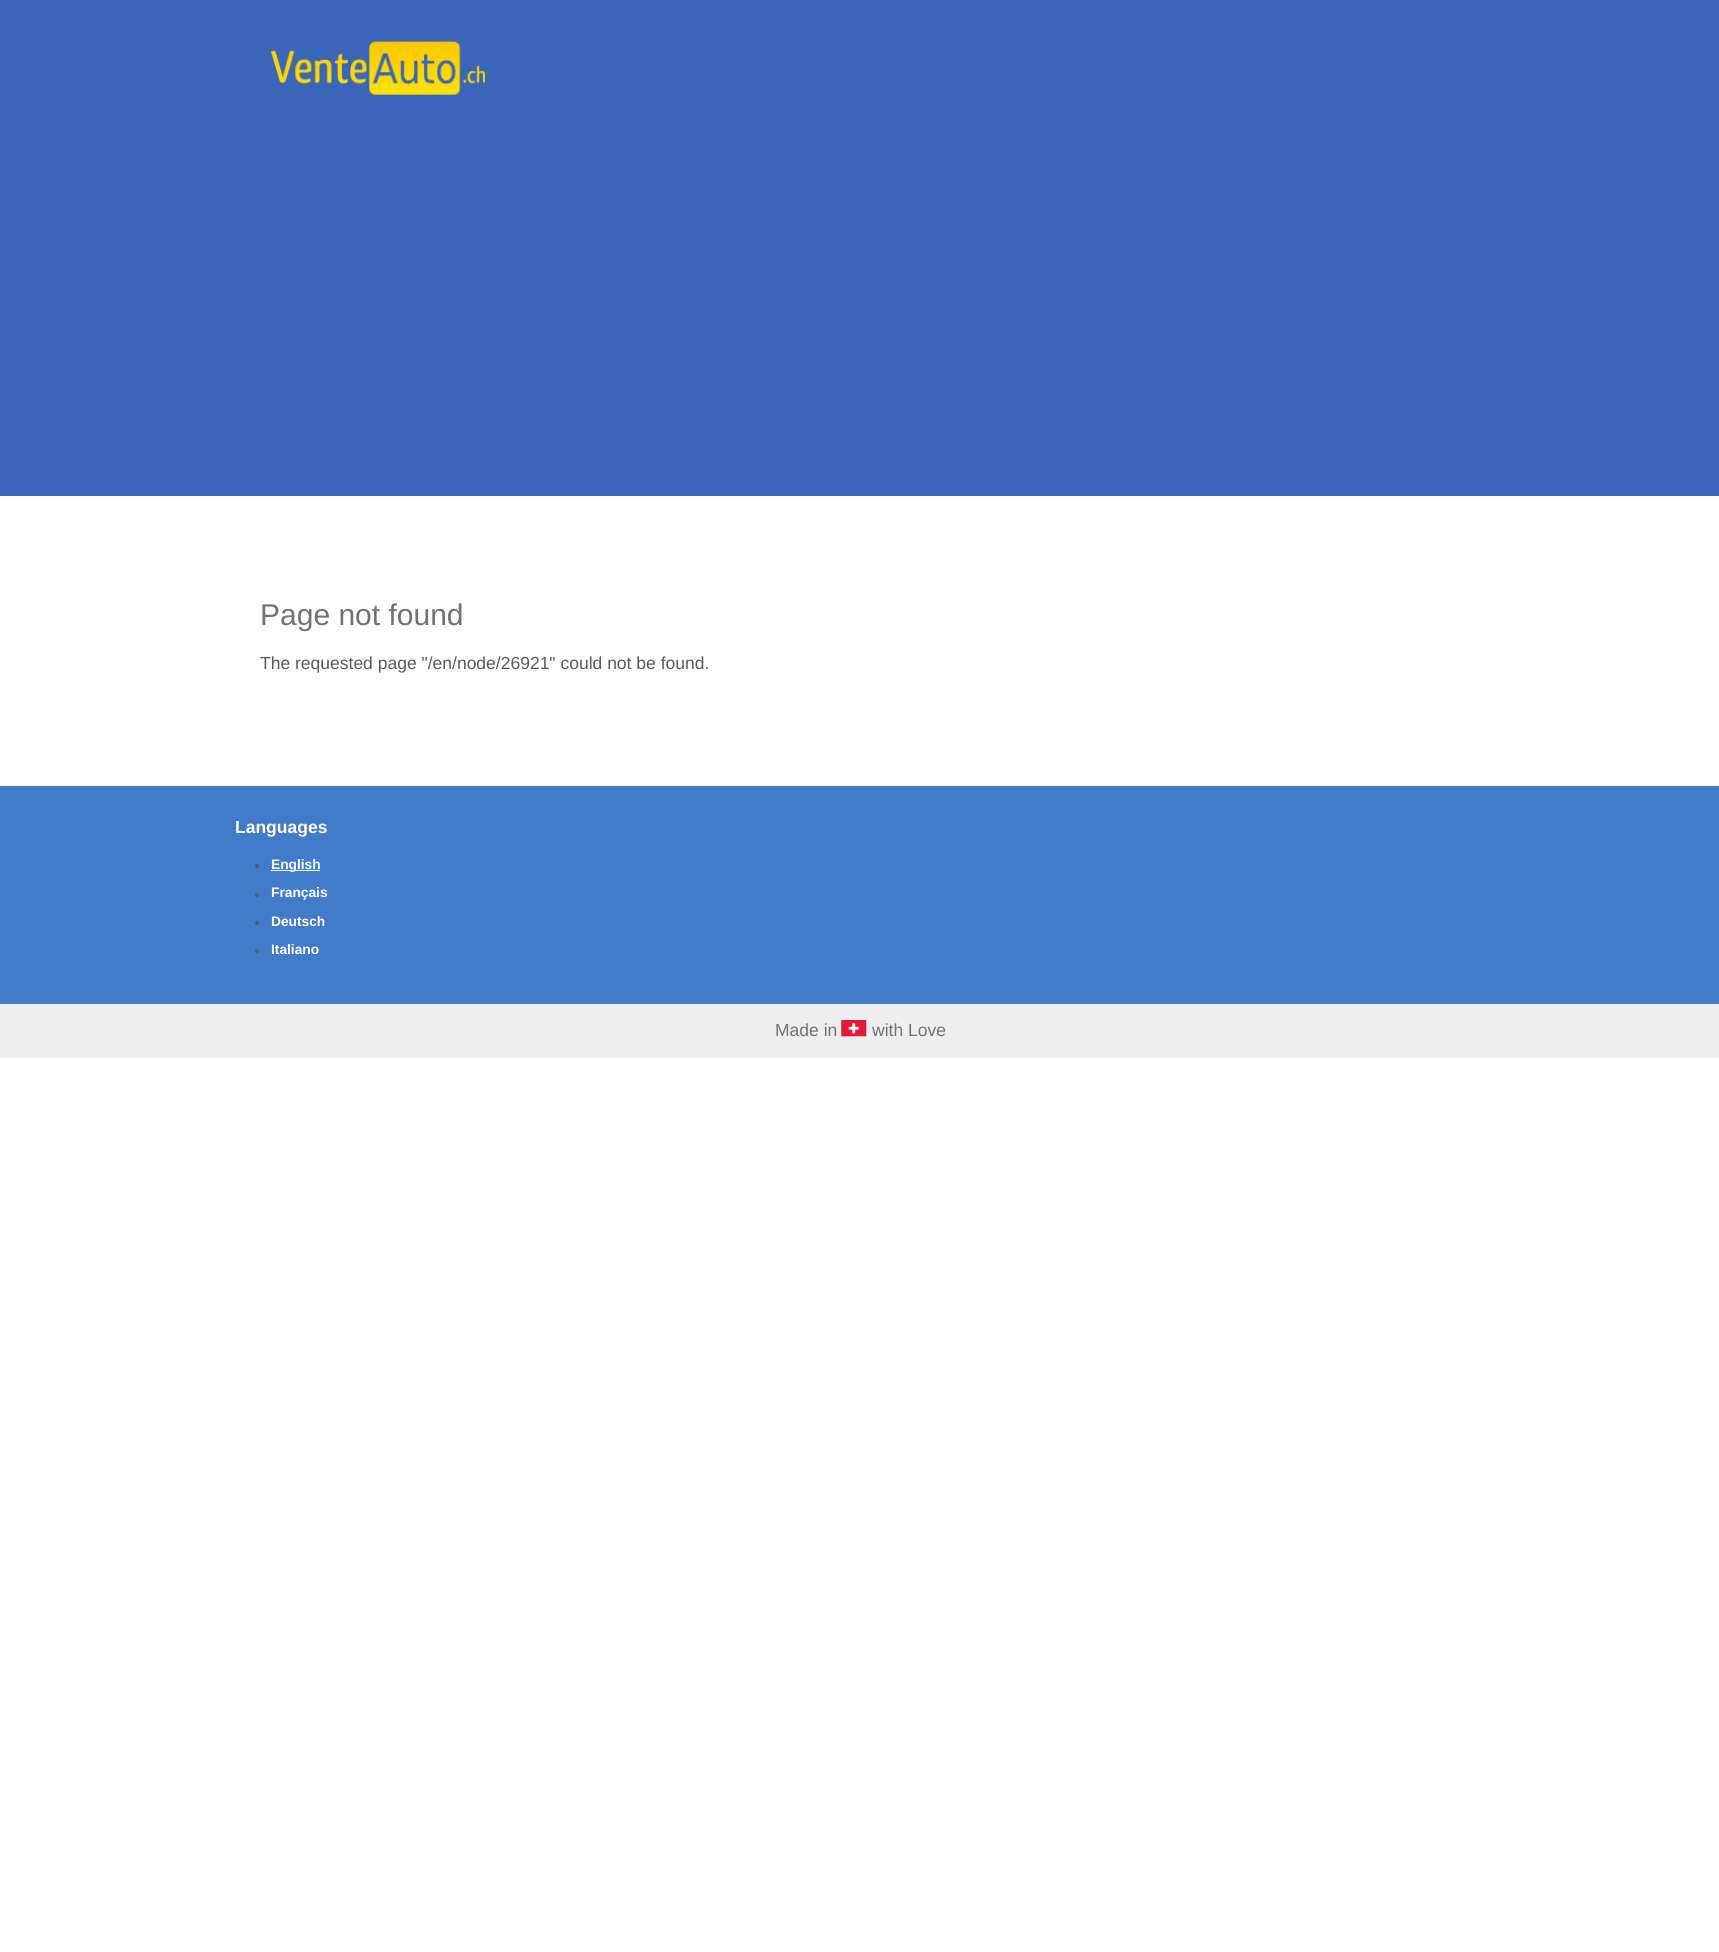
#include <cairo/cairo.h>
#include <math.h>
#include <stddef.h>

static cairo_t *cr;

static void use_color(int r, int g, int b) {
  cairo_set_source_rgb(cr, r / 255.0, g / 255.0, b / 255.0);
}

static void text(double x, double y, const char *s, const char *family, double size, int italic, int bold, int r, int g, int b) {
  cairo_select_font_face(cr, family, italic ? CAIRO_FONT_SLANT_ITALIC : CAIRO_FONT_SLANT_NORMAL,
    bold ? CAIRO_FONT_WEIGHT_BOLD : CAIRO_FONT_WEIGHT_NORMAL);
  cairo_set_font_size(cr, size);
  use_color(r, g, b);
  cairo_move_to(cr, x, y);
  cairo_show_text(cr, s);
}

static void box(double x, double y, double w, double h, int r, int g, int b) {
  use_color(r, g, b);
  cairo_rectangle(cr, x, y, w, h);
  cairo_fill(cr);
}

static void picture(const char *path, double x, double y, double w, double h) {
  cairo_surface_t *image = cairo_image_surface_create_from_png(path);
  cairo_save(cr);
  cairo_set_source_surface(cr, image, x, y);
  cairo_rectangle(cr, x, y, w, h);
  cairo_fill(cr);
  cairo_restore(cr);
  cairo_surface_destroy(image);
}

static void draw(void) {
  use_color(255, 255, 255);
  cairo_paint(cr);
  box(0, 0, 1719, 496, 57, 102, 182);
  picture("img_01.png", 270, 41, 215, 54);
  box(0, 786, 1719, 218, 65, 123, 202);
  use_color(81, 95, 92);
  cairo_arc(cr, 257, 866, 2, 0, 2 * M_PI);
  cairo_fill(cr);
  box(271, 870, 49, 1, 255, 255, 255);
  use_color(81, 95, 92);
  cairo_arc(cr, 257, 895, 2, 0, 2 * M_PI);
  cairo_fill(cr);
  cairo_arc(cr, 257, 923, 2, 0, 2 * M_PI);
  cairo_fill(cr);
  cairo_arc(cr, 257, 951, 2, 0, 2 * M_PI);
  cairo_fill(cr);
  box(0, 1004, 1719, 54, 238, 238, 238);
  picture("img_02.png", 841, 1020, 26, 17);
  text(260, 625, "Page not found", "Liberation Sans", 30, 0, 0, 114, 114, 114);
  text(260, 669, "The requested page \"/en/node/26921\" could not be found.", "Liberation Sans", 17.5, 0, 0, 81, 95, 92);
  text(235, 833, "Languages", "Liberation Sans", 17.5, 0, 1, 255, 255, 255);
  text(271, 869, "English", "Liberation Sans", 13.75, 0, 1, 255, 255, 255);
  text(271, 897, "Français", "Liberation Sans", 13.75, 0, 1, 255, 255, 255);
  text(271, 926, "Deutsch", "Liberation Sans", 13.75, 0, 1, 255, 255, 255);
  text(271, 954, "Italiano", "Liberation Sans", 13.75, 0, 1, 255, 255, 255);
  text(775, 1036, "Made in", "Liberation Sans", 17.5, 0, 0, 114, 114, 114);
  text(872, 1036, "with Love", "Liberation Sans", 17.5, 0, 0, 114, 114, 114);
}

int main(void) {
  cairo_surface_t *surface = cairo_image_surface_create(CAIRO_FORMAT_RGB24, 1719, 1952);
  cr = cairo_create(surface);
  cairo_font_options_t *options = cairo_font_options_create();
  cairo_font_options_set_hint_metrics(options, CAIRO_HINT_METRICS_OFF);
  cairo_font_options_set_hint_style(options, CAIRO_HINT_STYLE_NONE);
  cairo_set_font_options(cr, options);
  cairo_set_miter_limit(cr, 4);
  draw();
  cairo_surface_write_to_png(surface, "out.png");
  cairo_font_options_destroy(options);
  cairo_destroy(cr);
  cairo_surface_destroy(surface);
  return 0;
}
